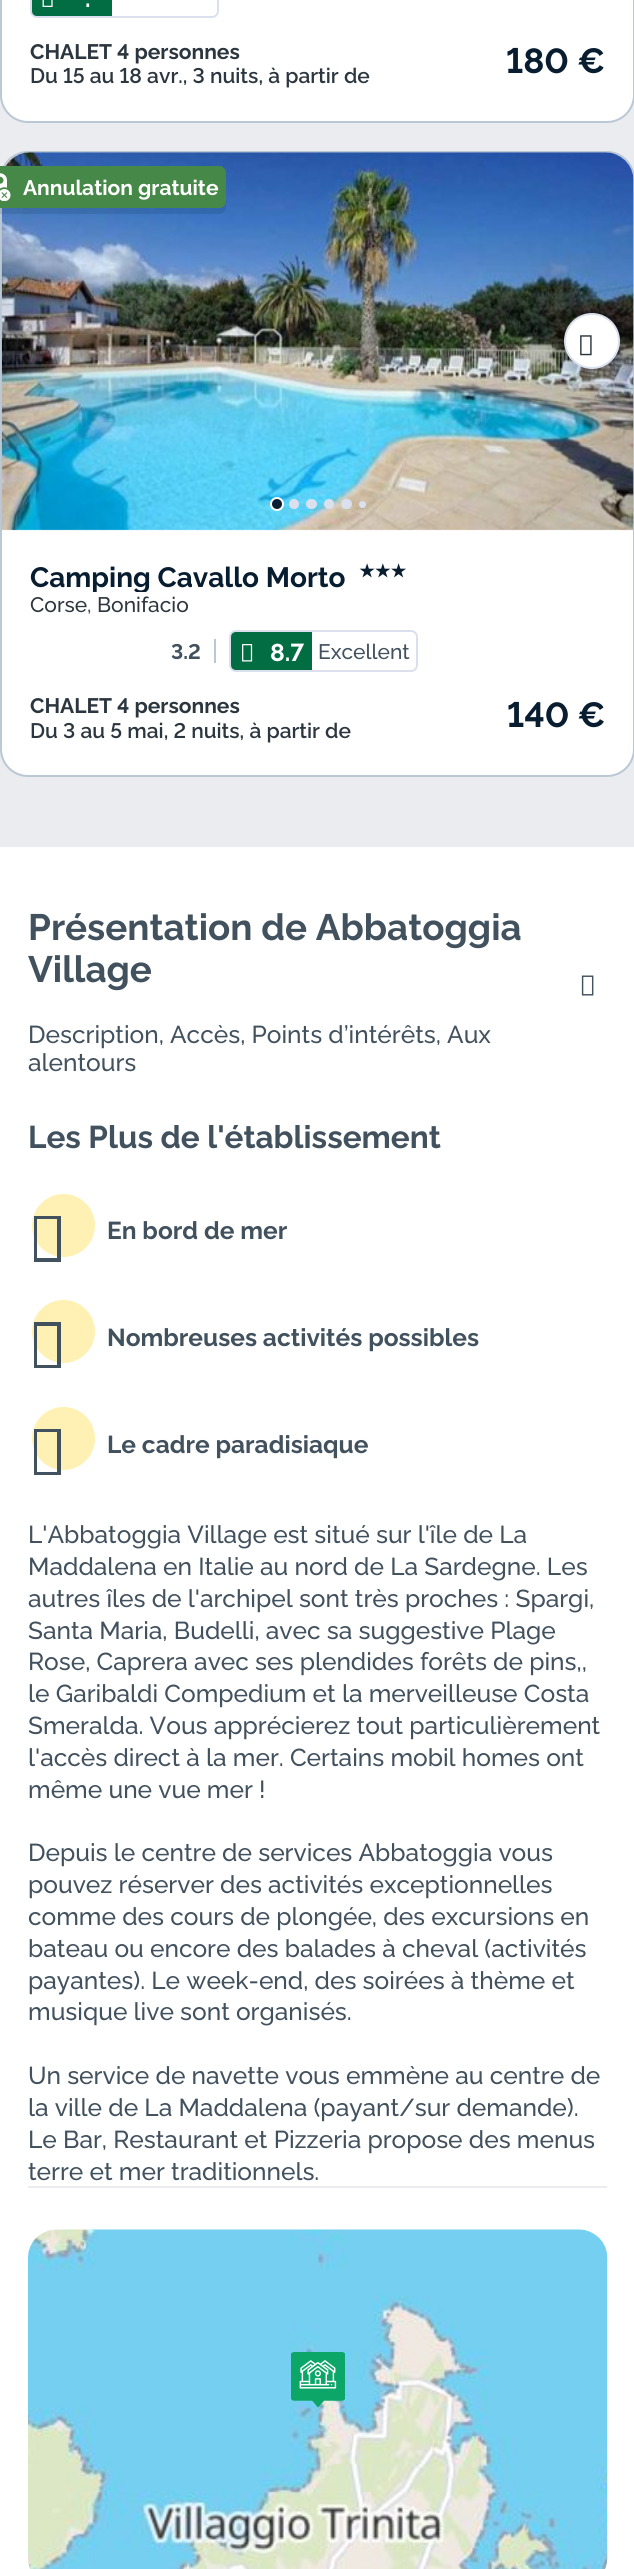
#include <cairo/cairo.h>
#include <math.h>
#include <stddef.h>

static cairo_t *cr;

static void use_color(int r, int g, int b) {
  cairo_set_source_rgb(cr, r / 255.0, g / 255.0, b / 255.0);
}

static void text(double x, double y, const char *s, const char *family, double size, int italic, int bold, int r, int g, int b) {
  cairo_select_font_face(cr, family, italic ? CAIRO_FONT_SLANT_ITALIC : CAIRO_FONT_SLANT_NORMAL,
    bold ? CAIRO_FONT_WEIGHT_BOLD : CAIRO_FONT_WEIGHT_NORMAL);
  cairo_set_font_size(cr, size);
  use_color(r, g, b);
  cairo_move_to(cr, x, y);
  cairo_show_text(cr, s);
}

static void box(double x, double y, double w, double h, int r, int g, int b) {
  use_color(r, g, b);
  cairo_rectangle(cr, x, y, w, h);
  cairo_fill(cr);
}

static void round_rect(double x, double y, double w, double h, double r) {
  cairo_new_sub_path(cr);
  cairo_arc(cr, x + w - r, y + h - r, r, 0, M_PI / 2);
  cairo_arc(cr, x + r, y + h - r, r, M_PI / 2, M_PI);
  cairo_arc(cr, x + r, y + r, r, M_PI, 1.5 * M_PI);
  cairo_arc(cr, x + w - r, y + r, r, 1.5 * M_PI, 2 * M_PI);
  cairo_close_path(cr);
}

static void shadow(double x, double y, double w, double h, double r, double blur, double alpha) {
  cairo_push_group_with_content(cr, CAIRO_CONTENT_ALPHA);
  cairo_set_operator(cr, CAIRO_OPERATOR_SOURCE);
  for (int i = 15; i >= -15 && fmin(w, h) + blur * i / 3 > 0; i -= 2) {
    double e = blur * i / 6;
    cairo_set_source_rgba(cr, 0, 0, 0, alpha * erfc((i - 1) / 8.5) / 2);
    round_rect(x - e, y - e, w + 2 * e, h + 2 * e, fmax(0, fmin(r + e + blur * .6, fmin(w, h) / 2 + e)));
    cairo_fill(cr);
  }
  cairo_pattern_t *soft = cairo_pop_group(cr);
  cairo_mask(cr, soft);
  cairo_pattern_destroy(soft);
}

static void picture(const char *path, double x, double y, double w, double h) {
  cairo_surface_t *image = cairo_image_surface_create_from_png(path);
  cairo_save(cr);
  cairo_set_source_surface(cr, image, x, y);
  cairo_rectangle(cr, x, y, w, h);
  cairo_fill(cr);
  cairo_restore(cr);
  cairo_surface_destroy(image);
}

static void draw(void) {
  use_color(235, 236, 240);
  cairo_paint(cr);
  use_color(255, 255, 255);
  round_rect(1, -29, 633, 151, 27);
  cairo_fill_preserve(cr);
  use_color(186, 199, 213);
  cairo_stroke(cr);
  round_rect(31, -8, 187, 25, 6);
  use_color(218, 224, 237);
  cairo_stroke(cr);
  use_color(2, 109, 66);
  cairo_new_path(cr);
  cairo_move_to(cr, 37, -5);
  cairo_line_to(cr, 112, -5);
  cairo_line_to(cr, 112, 16);
  cairo_line_to(cr, 37, 16);
  cairo_curve_to(cr, 34, 16, 32, 14, 32, 11);
  cairo_line_to(cr, 32, 0);
  cairo_curve_to(cr, 32, -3, 34, -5, 37, -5);
  cairo_close_path(cr);
  cairo_fill(cr);
  picture("img_01.png", 42, 0, 11, 7);
  use_color(255, 255, 255);
  round_rect(1, 152, 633, 624, 27);
  cairo_fill_preserve(cr);
  use_color(186, 199, 213);
  cairo_stroke(cr);
  picture("img_02.png", 1, 152, 633, 379);
  use_color(8, 29, 48);
  shadow(567, 320, 56, 56, 28, 7, 0.12);
  use_color(255, 255, 255);
  cairo_arc(cr, 592, 341, 27, 0, 2 * M_PI);
  cairo_fill_preserve(cr);
  use_color(218, 224, 237);
  cairo_stroke(cr);
  picture("img_03.png", 580, 335, 12, 21);
  use_color(8, 29, 48);
  cairo_arc(cr, 277, 504, 6, 0, 2 * M_PI);
  cairo_fill_preserve(cr);
  use_color(255, 255, 255);
  cairo_stroke(cr);
  use_color(218, 224, 237);
  cairo_arc(cr, 294, 504, 5, 0, 2 * M_PI);
  cairo_fill(cr);
  round_rect(306, 499, 11, 10, 5);
  cairo_fill(cr);
  cairo_arc(cr, 329, 504, 5, 0, 2 * M_PI);
  cairo_fill(cr);
  round_rect(341, 499, 11, 10, 5);
  cairo_fill(cr);
  cairo_arc(cr, 362.5, 504.5, 3.5, 0, 2 * M_PI);
  cairo_fill(cr);
  cairo_set_source_rgba(cr, 0.031, 0.114, 0.188, 0.12);
  cairo_new_path(cr);
  cairo_move_to(cr, -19, 203);
  cairo_curve_to(cr, -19, 208, -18, 214, -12, 214);
  cairo_line_to(cr, 219, 214);
  cairo_curve_to(cr, 228, 214, 226, 203, 226, 198);
  cairo_line_to(cr, 226, 177);
  cairo_line_to(cr, 226, 201);
  cairo_curve_to(cr, 226, 205, 223, 208, 219, 208);
  cairo_line_to(cr, -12, 208);
  cairo_curve_to(cr, -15, 208, -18, 206, -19, 203);
  cairo_close_path(cr);
  cairo_fill(cr);
  use_color(70, 136, 71);
  round_rect(-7, 166, 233, 42, 7);
  cairo_fill(cr);
  picture("img_04.png", 0, 173, 11, 28);
  box(214, 639, 2, 24, 186, 199, 213);
  round_rect(230, 631, 187, 40, 6);
  use_color(218, 224, 237);
  cairo_stroke(cr);
  use_color(2, 109, 66);
  cairo_new_path(cr);
  cairo_move_to(cr, 236, 632);
  cairo_line_to(cr, 312, 632);
  cairo_line_to(cr, 312, 670);
  cairo_line_to(cr, 236, 670);
  cairo_curve_to(cr, 233, 670, 231, 668, 231, 665);
  cairo_line_to(cr, 231, 637);
  cairo_curve_to(cr, 231, 634, 233, 632, 236, 632);
  cairo_close_path(cr);
  cairo_fill(cr);
  picture("img_05.png", 242, 644, 11, 18);
  box(0, 847, 634, 1722, 255, 255, 255);
  picture("img_06.png", 581, 975, 13, 21);
  box(28, 2186, 579, 2, 235, 236, 240);
  use_color(255, 241, 179);
  cairo_arc(cr, 63.5, 1225.5, 31.5, 0, 2 * M_PI);
  cairo_fill(cr);
  use_color(66, 81, 94);
  cairo_new_path(cr);
  cairo_move_to(cr, 34, 1262);
  cairo_line_to(cr, 34, 1216);
  cairo_line_to(cr, 61, 1216);
  cairo_line_to(cr, 61, 1262);
  cairo_close_path(cr);
  cairo_move_to(cr, 37, 1258);
  cairo_line_to(cr, 57, 1258);
  cairo_line_to(cr, 57, 1219);
  cairo_line_to(cr, 37, 1219);
  cairo_close_path(cr);
  cairo_fill(cr);
  use_color(255, 241, 179);
  cairo_arc(cr, 63.5, 1331.5, 31.5, 0, 2 * M_PI);
  cairo_fill(cr);
  use_color(66, 81, 94);
  cairo_new_path(cr);
  cairo_move_to(cr, 34, 1368);
  cairo_line_to(cr, 34, 1322);
  cairo_line_to(cr, 61, 1322);
  cairo_line_to(cr, 61, 1368);
  cairo_close_path(cr);
  cairo_move_to(cr, 37, 1365);
  cairo_line_to(cr, 57, 1365);
  cairo_line_to(cr, 57, 1326);
  cairo_line_to(cr, 37, 1326);
  cairo_close_path(cr);
  cairo_fill(cr);
  use_color(255, 241, 179);
  cairo_arc(cr, 63.5, 1438.5, 31.5, 0, 2 * M_PI);
  cairo_fill(cr);
  use_color(66, 81, 94);
  cairo_new_path(cr);
  cairo_move_to(cr, 34, 1475);
  cairo_line_to(cr, 34, 1429);
  cairo_line_to(cr, 61, 1429);
  cairo_line_to(cr, 61, 1475);
  cairo_close_path(cr);
  cairo_move_to(cr, 37, 1472);
  cairo_line_to(cr, 57, 1472);
  cairo_line_to(cr, 57, 1432);
  cairo_line_to(cr, 37, 1432);
  cairo_close_path(cr);
  cairo_fill(cr);
  picture("img_07.png", 28, 2229, 580, 340);
  picture("img_08.png", 291, 2352, 54, 56);
  text(85, 7, ".", "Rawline", 24.5, 0, 1, 255, 255, 255);
  text(30, 59, "CHALET 4 personnes", "Rawline", 21, 0, 1, 44, 54, 63);
  text(30, 83, "Du 15 au 18 avr., 3 nuits, à partir de", "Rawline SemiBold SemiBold", 21, 0, 0, 44, 54, 63);
  text(506, 73, "180 €", "Rawline", 35, 0, 1, 8, 29, 48);
  text(23, 195, "Annulation gratuite", "Rawline", 21, 0, 1, 255, 255, 255);
  cairo_save(cr);
  cairo_rectangle(cr, 30, 558, 315, 34);
  cairo_clip(cr);
  text(30, 587, "Camping Cavallo Morto", "Rawline", 28, 0, 1, 8, 29, 48);
  cairo_restore(cr);
  text(359, 577, "★★★", "DejaVu Sans", 17.5, 0, 1, 8, 29, 48);
  text(30, 612, "Corse", "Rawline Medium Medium", 21, 0, 0, 44, 54, 63);
  text(87, 612, ",", "Rawline Medium Medium", 21, 0, 0, 66, 81, 94);
  text(97, 612, "Bonifacio", "Rawline Medium Medium", 21, 0, 0, 44, 54, 63);
  text(171, 659, "3.2", "Rawline", 21, 0, 1, 66, 81, 94);
  text(270, 661, "8.7", "Rawline", 24.5, 0, 1, 255, 255, 255);
  text(318, 659, "Excellent", "Rawline Medium Medium", 21, 0, 0, 66, 81, 94);
  text(30, 713, "CHALET 4 personnes", "Rawline", 21, 0, 1, 44, 54, 63);
  text(30, 738, "Du 3 au 5 mai, 2 nuits, à partir de", "Rawline SemiBold SemiBold", 21, 0, 0, 44, 54, 63);
  text(507, 727, "140 €", "Rawline", 35, 0, 1, 8, 29, 48);
  text(28, 940, "Présentation de Abbatoggia", "Rawline", 36.75, 0, 1, 66, 81, 94);
  text(28, 982, "Village", "Rawline", 36.75, 0, 1, 66, 81, 94);
  text(28, 1043, "Description, Accès, Points d’intérêts, Aux", "Rawline Medium Medium", 24.5, 0, 0, 66, 81, 94);
  text(28, 1071, "alentours", "Rawline Medium Medium", 24.5, 0, 0, 66, 81, 94);
  text(28, 1148, "Les Plus de l'établissement", "Rawline", 31.5, 0, 1, 66, 81, 94);
  text(107, 1239, "En bord de mer", "Rawline", 24.5, 0, 1, 66, 81, 94);
  text(107, 1346, "Nombreuses activités possibles", "Rawline", 24.5, 0, 1, 66, 81, 94);
  text(107, 1453, "Le cadre paradisiaque", "Rawline", 24.5, 0, 1, 66, 81, 94);
  text(28, 1543, "L'Abbatoggia Village est situé sur l'île de La", "Rawline Medium Medium", 24.5, 0, 0, 66, 81, 94);
  text(28, 1575, "Maddalena en Italie au nord de La Sardegne. Les", "Rawline Medium Medium", 24.5, 0, 0, 66, 81, 94);
  text(28, 1607, "autres îles de l'archipel sont très proches : Spargi,", "Rawline Medium Medium", 24.5, 0, 0, 66, 81, 94);
  text(28, 1639, "Santa Maria, Budelli, avec sa suggestive Plage", "Rawline Medium Medium", 24.5, 0, 0, 66, 81, 94);
  text(28, 1670, "Rose, Caprera avec ses plendides forêts de pins,,", "Rawline Medium Medium", 24.5, 0, 0, 66, 81, 94);
  text(28, 1702, "le Garibaldi Compedium et la merveilleuse Costa", "Rawline Medium Medium", 24.5, 0, 0, 66, 81, 94);
  text(28, 1734, "Smeralda. Vous apprécierez tout particulièrement", "Rawline Medium Medium", 24.5, 0, 0, 66, 81, 94);
  text(28, 1766, "l'accès direct à la mer. Certains mobil homes ont", "Rawline Medium Medium", 24.5, 0, 0, 66, 81, 94);
  text(28, 1798, "même une vue mer !", "Rawline Medium Medium", 24.5, 0, 0, 66, 81, 94);
  text(28, 1861, "Depuis le centre de services Abbatoggia vous", "Rawline Medium Medium", 24.5, 0, 0, 66, 81, 94);
  text(28, 1893, "pouvez réserver des activités exceptionnelles", "Rawline Medium Medium", 24.5, 0, 0, 66, 81, 94);
  text(28, 1925, "comme des cours de plongée, des excursions en", "Rawline Medium Medium", 24.5, 0, 0, 66, 81, 94);
  text(28, 1957, "bateau ou encore des balades à cheval (activités", "Rawline Medium Medium", 24.5, 0, 0, 66, 81, 94);
  text(28, 1989, "payantes). Le week-end, des soirées à thème et", "Rawline Medium Medium", 24.5, 0, 0, 66, 81, 94);
  text(28, 2020, "musique live sont organisés.", "Rawline Medium Medium", 24.5, 0, 0, 66, 81, 94);
  text(28, 2084, "Un service de navette vous emmène au centre de", "Rawline Medium Medium", 24.5, 0, 0, 66, 81, 94);
  text(28, 2116, "la ville de La Maddalena (payant/sur demande).", "Rawline Medium Medium", 24.5, 0, 0, 66, 81, 94);
  text(28, 2148, "Le Bar, Restaurant et Pizzeria propose des menus", "Rawline Medium Medium", 24.5, 0, 0, 66, 81, 94);
  text(28, 2180, "terre et mer traditionnels.", "Rawline Medium Medium", 24.5, 0, 0, 66, 81, 94);
}

int main(void) {
  cairo_surface_t *surface = cairo_image_surface_create(CAIRO_FORMAT_RGB24, 634, 2569);
  cr = cairo_create(surface);
  cairo_font_options_t *options = cairo_font_options_create();
  cairo_font_options_set_hint_metrics(options, CAIRO_HINT_METRICS_OFF);
  cairo_font_options_set_hint_style(options, CAIRO_HINT_STYLE_NONE);
  cairo_set_font_options(cr, options);
  cairo_set_miter_limit(cr, 4);
  draw();
  cairo_surface_write_to_png(surface, "out.png");
  cairo_font_options_destroy(options);
  cairo_destroy(cr);
  cairo_surface_destroy(surface);
  return 0;
}
